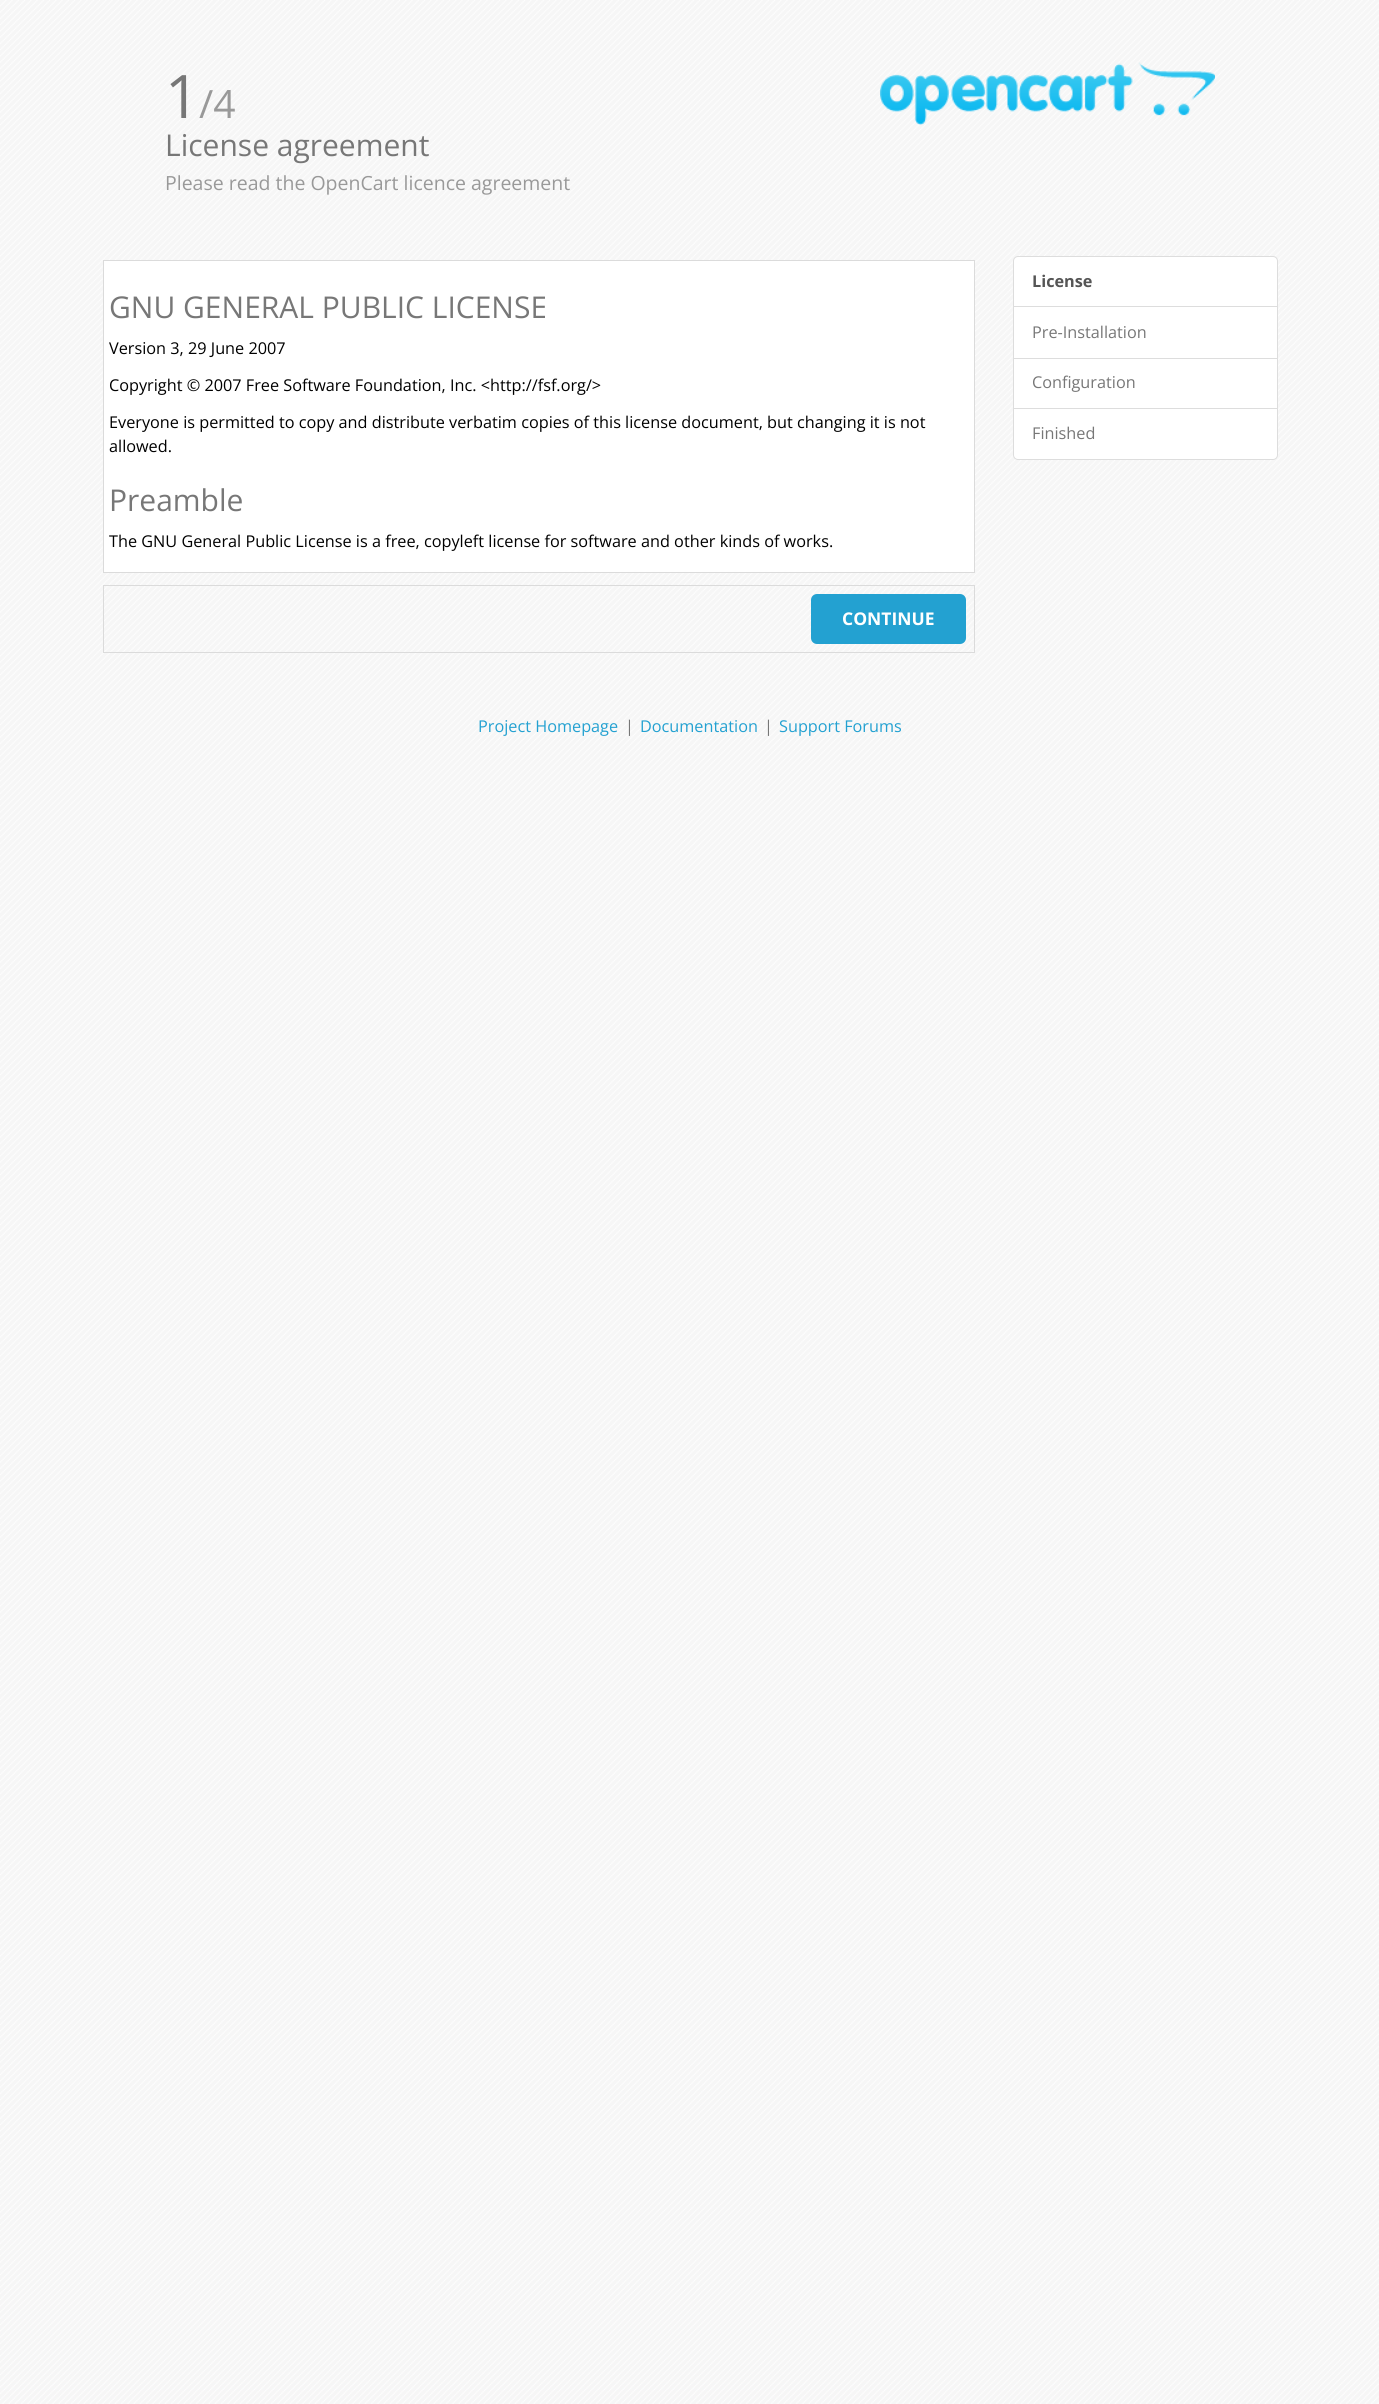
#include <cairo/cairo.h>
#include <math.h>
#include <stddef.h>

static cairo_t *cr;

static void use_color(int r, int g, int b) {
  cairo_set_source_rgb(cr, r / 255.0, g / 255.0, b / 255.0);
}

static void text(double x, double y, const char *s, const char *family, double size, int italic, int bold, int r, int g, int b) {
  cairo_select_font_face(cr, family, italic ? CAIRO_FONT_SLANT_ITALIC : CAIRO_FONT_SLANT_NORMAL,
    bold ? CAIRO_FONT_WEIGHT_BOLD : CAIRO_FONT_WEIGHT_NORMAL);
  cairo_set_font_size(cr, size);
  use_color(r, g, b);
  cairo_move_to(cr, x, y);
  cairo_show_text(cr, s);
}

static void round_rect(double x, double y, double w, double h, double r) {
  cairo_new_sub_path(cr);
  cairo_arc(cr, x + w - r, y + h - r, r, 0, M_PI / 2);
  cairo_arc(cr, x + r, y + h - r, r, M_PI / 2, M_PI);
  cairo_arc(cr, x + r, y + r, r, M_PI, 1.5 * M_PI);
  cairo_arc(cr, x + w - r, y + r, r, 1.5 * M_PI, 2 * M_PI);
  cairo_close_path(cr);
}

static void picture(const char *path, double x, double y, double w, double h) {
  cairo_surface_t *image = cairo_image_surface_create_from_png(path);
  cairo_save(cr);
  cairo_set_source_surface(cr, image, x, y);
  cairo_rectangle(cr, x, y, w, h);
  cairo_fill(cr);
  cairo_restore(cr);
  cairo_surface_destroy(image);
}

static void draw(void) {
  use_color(255, 255, 255);
  cairo_paint(cr);
  picture("img_01.png", 0, 0, 1379, 2404);
  picture("img_02.png", 880, 62, 335, 63);
  use_color(255, 255, 255);
  cairo_rectangle(cr, 103.5, 260.5, 871, 312);
  cairo_fill_preserve(cr);
  use_color(219, 219, 219);
  cairo_set_line_width(cr, 1);
  cairo_stroke(cr);
  cairo_rectangle(cr, 103.5, 585.5, 871, 67);
  cairo_stroke(cr);
  use_color(35, 161, 209);
  round_rect(811, 594, 155, 50, 6);
  cairo_fill(cr);
  use_color(255, 255, 255);
  cairo_new_path(cr);
  cairo_move_to(cr, 1018, 256.5);
  cairo_line_to(cr, 1273, 256.5);
  cairo_curve_to(cr, 1275.5, 256.5, 1277.5, 258.5, 1277.5, 261);
  cairo_line_to(cr, 1277.5, 307.5);
  cairo_line_to(cr, 1013.5, 307.5);
  cairo_line_to(cr, 1013.5, 261);
  cairo_curve_to(cr, 1013.5, 258.5, 1015.5, 256.5, 1018, 256.5);
  cairo_close_path(cr);
  cairo_fill_preserve(cr);
  use_color(221, 221, 221);
  cairo_stroke(cr);
  use_color(255, 255, 255);
  cairo_rectangle(cr, 1013.5, 306.5, 264, 52);
  cairo_fill_preserve(cr);
  use_color(221, 221, 221);
  cairo_stroke(cr);
  use_color(255, 255, 255);
  cairo_rectangle(cr, 1013.5, 358.5, 264, 50);
  cairo_fill_preserve(cr);
  use_color(221, 221, 221);
  cairo_stroke(cr);
  use_color(255, 255, 255);
  cairo_new_path(cr);
  cairo_move_to(cr, 1013.5, 408.5);
  cairo_line_to(cr, 1277.5, 408.5);
  cairo_line_to(cr, 1277.5, 455);
  cairo_curve_to(cr, 1277.5, 457.5, 1275.5, 459.5, 1273, 459.5);
  cairo_line_to(cr, 1018, 459.5);
  cairo_curve_to(cr, 1015.5, 459.5, 1013.5, 457.5, 1013.5, 455);
  cairo_close_path(cr);
  cairo_fill_preserve(cr);
  use_color(221, 221, 221);
  cairo_stroke(cr);
  text(165, 118, "1", "Open Sans", 60, 0, 0, 119, 119, 119);
  text(199, 118, "/4", "Open Sans", 39, 0, 0, 153, 153, 153);
  text(165, 156, "License agreement", "Open Sans", 30, 0, 0, 119, 119, 119);
  text(165, 190, "Please read the OpenCart licence agreement", "Open Sans", 19.5, 0, 0, 153, 153, 153);
  text(109, 318, "GNU GENERAL PUBLIC LICENSE", "Open Sans", 30, 0, 0, 119, 119, 119);
  text(109, 354, "Version 3, 29 June 2007", "Open Sans", 16.25, 0, 0, 0, 0, 0);
  text(109, 391, "Copyright © 2007 Free Software Foundation, Inc. <http://fsf.org/>", "Open Sans", 16.25, 0, 0, 0, 0, 0);
  text(109, 428, "Everyone is permitted to copy and distribute verbatim copies of this license document, but changing it is not", "Open Sans", 16.25, 0, 0, 0, 0, 0);
  text(109, 452, "allowed.", "Open Sans", 16.25, 0, 0, 0, 0, 0);
  text(109, 511, "Preamble", "Open Sans", 30, 0, 0, 119, 119, 119);
  text(109, 547, "The GNU General Public License is a free, copyleft license for software and other kinds of works.", "Open Sans", 16.25, 0, 0, 0, 0, 0);
  text(842, 625, "CONTINUE", "Open Sans", 17.5, 0, 1, 255, 255, 255);
  text(1032, 287, "License", "Open Sans", 16.25, 0, 1, 85, 85, 85);
  text(1032, 338, "Pre-Installation", "Open Sans", 16.25, 0, 0, 119, 119, 119);
  text(1032, 388, "Configuration", "Open Sans", 16.25, 0, 0, 119, 119, 119);
  text(1032, 439, "Finished", "Open Sans", 16.25, 0, 0, 119, 119, 119);
  text(478, 732, "Project Homepage", "Open Sans", 16.25, 0, 0, 35, 161, 209);
  text(625, 732, "|", "Open Sans", 16.25, 0, 0, 119, 119, 119);
  text(640, 732, "Documentation", "Open Sans", 16.25, 0, 0, 35, 161, 209);
  text(764, 732, "|", "Open Sans", 16.25, 0, 0, 119, 119, 119);
  text(779, 732, "Support Forums", "Open Sans", 16.25, 0, 0, 35, 161, 209);
}

int main(void) {
  cairo_surface_t *surface = cairo_image_surface_create(CAIRO_FORMAT_RGB24, 1379, 2404);
  cr = cairo_create(surface);
  cairo_font_options_t *options = cairo_font_options_create();
  cairo_font_options_set_hint_metrics(options, CAIRO_HINT_METRICS_OFF);
  cairo_font_options_set_hint_style(options, CAIRO_HINT_STYLE_NONE);
  cairo_set_font_options(cr, options);
  cairo_set_miter_limit(cr, 4);
  draw();
  cairo_surface_write_to_png(surface, "out.png");
  cairo_font_options_destroy(options);
  cairo_destroy(cr);
  cairo_surface_destroy(surface);
  return 0;
}
